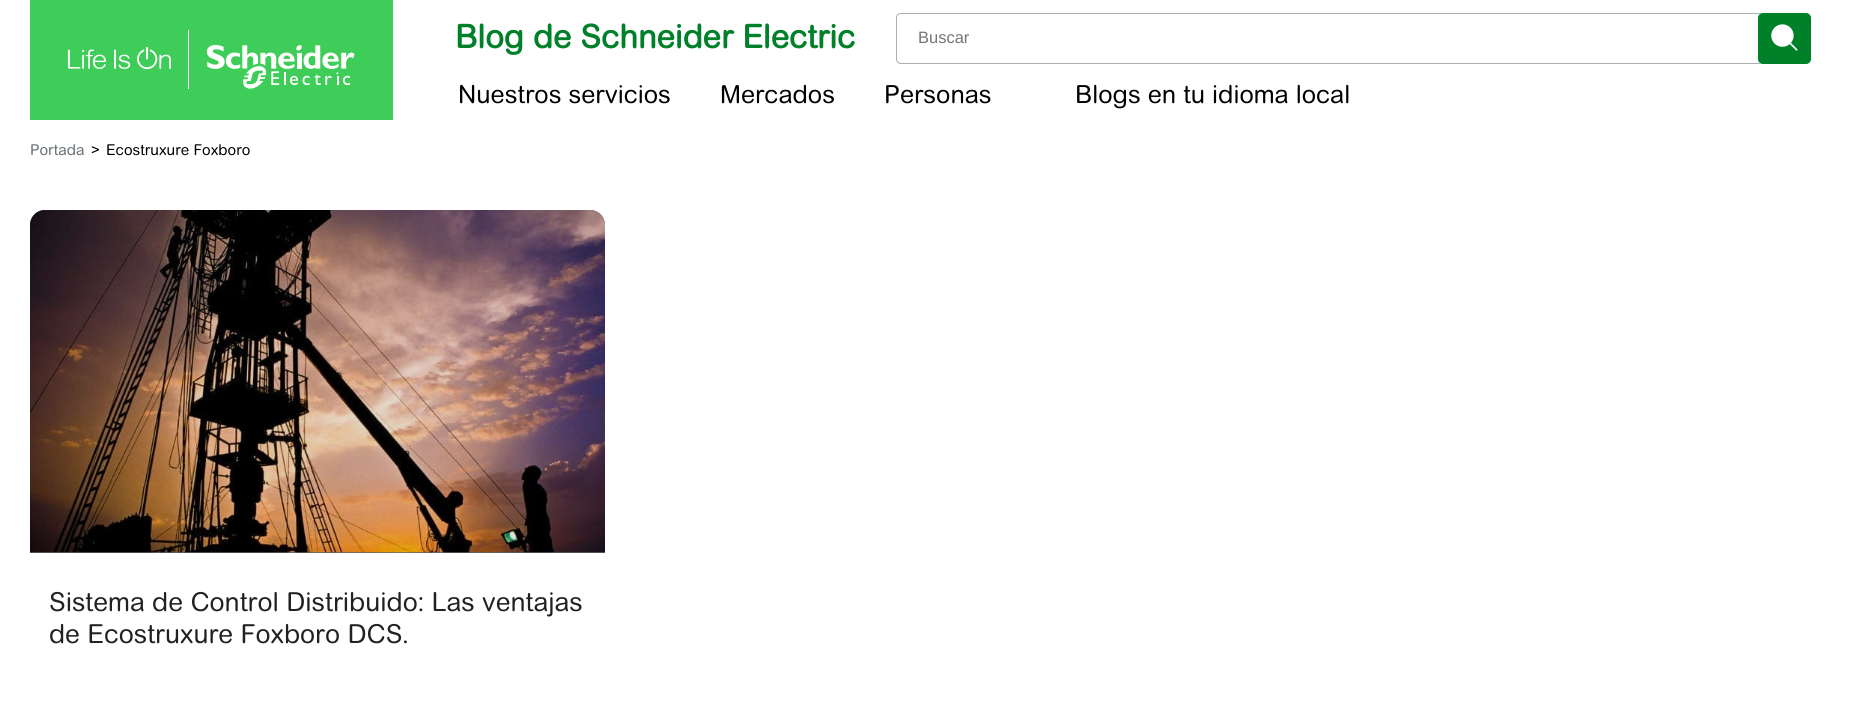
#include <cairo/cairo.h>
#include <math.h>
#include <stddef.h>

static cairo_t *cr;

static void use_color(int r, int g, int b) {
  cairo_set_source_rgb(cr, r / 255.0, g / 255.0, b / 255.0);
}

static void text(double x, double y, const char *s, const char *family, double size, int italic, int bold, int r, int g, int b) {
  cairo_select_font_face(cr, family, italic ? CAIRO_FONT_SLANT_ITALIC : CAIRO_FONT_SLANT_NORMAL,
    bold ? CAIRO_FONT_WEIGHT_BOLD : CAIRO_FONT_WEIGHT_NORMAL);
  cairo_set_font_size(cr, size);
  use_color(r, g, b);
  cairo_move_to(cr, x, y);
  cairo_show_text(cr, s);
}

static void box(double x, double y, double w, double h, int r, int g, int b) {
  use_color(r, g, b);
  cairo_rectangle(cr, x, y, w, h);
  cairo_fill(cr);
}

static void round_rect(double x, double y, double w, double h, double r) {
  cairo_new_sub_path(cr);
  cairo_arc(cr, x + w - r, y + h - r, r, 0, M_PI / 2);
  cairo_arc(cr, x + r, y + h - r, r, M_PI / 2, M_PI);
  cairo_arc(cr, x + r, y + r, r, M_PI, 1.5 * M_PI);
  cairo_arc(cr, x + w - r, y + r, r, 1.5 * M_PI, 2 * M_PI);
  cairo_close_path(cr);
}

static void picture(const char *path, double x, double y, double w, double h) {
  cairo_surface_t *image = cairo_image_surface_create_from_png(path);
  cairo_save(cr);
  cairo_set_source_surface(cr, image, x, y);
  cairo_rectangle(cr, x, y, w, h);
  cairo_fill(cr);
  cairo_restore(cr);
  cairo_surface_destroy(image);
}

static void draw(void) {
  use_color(255, 255, 255);
  cairo_paint(cr);
  box(30, 0, 363, 120, 61, 205, 88);
  picture("img_01.png", 67, 30, 288, 59);
  round_rect(896.5, 13.5, 866, 50, 4.5);
  use_color(172, 173, 176);
  cairo_set_line_width(cr, 1);
  cairo_stroke(cr);
  use_color(0, 128, 41);
  round_rect(1758.5, 13.5, 52, 50, 4.5);
  cairo_fill_preserve(cr);
  cairo_stroke(cr);
  picture("img_02.png", 1771, 24, 27, 27);
  use_color(93, 100, 104);
  cairo_new_path(cr);
  cairo_move_to(cr, 45, 210);
  cairo_line_to(cr, 590, 210);
  cairo_curve_to(cr, 598.5, 210, 605, 216.5, 605, 225);
  cairo_line_to(cr, 605, 553);
  cairo_line_to(cr, 30, 553);
  cairo_line_to(cr, 30, 225);
  cairo_curve_to(cr, 30, 216.5, 36.5, 210, 45, 210);
  cairo_close_path(cr);
  cairo_fill(cr);
  picture("img_03.png", 30, 210, 575, 343);
  text(455, 48, "Blog de Schneider Electric", "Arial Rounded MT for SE", 32.5, 0, 1, 0, 128, 41);
  text(918, 43, "Buscar", "Liberation Sans", 16.5, 0, 0, 117, 117, 117);
  text(458, 103, "Nuestros servicios", "Arial Rounded MT for SE", 25, 0, 0, 0, 0, 0);
  text(720, 103, "Mercados", "Arial Rounded MT for SE", 25, 0, 0, 0, 0, 0);
  text(884, 103, "Personas", "Arial Rounded MT for SE", 25, 0, 0, 0, 0, 0);
  text(1075, 103, "Blogs en tu idioma local", "Arial Rounded MT for SE", 25, 0, 0, 0, 0, 0);
  text(30, 155, "Portada", "Arial Rounded MT for SE", 15, 0, 0, 103, 111, 115);
  text(91, 155, ">", "Arial Rounded MT for SE", 15, 0, 0, 0, 0, 0);
  text(106, 155, "Ecostruxure Foxboro", "Arial Rounded MT for SE", 15, 0, 0, 0, 0, 0);
  text(49, 611, "Sistema de Control Distribuido: Las ventajas", "Arial Rounded MT for SE", 26.25, 0, 0, 32, 33, 36);
  text(49, 643, "de Ecostruxure Foxboro DCS.", "Arial Rounded MT for SE", 26.25, 0, 0, 32, 33, 36);
}

int main(void) {
  cairo_surface_t *surface = cairo_image_surface_create(CAIRO_FORMAT_RGB24, 1859, 713);
  cr = cairo_create(surface);
  cairo_font_options_t *options = cairo_font_options_create();
  cairo_font_options_set_hint_metrics(options, CAIRO_HINT_METRICS_OFF);
  cairo_font_options_set_hint_style(options, CAIRO_HINT_STYLE_NONE);
  cairo_set_font_options(cr, options);
  cairo_set_miter_limit(cr, 4);
  draw();
  cairo_surface_write_to_png(surface, "out.png");
  cairo_font_options_destroy(options);
  cairo_destroy(cr);
  cairo_surface_destroy(surface);
  return 0;
}
